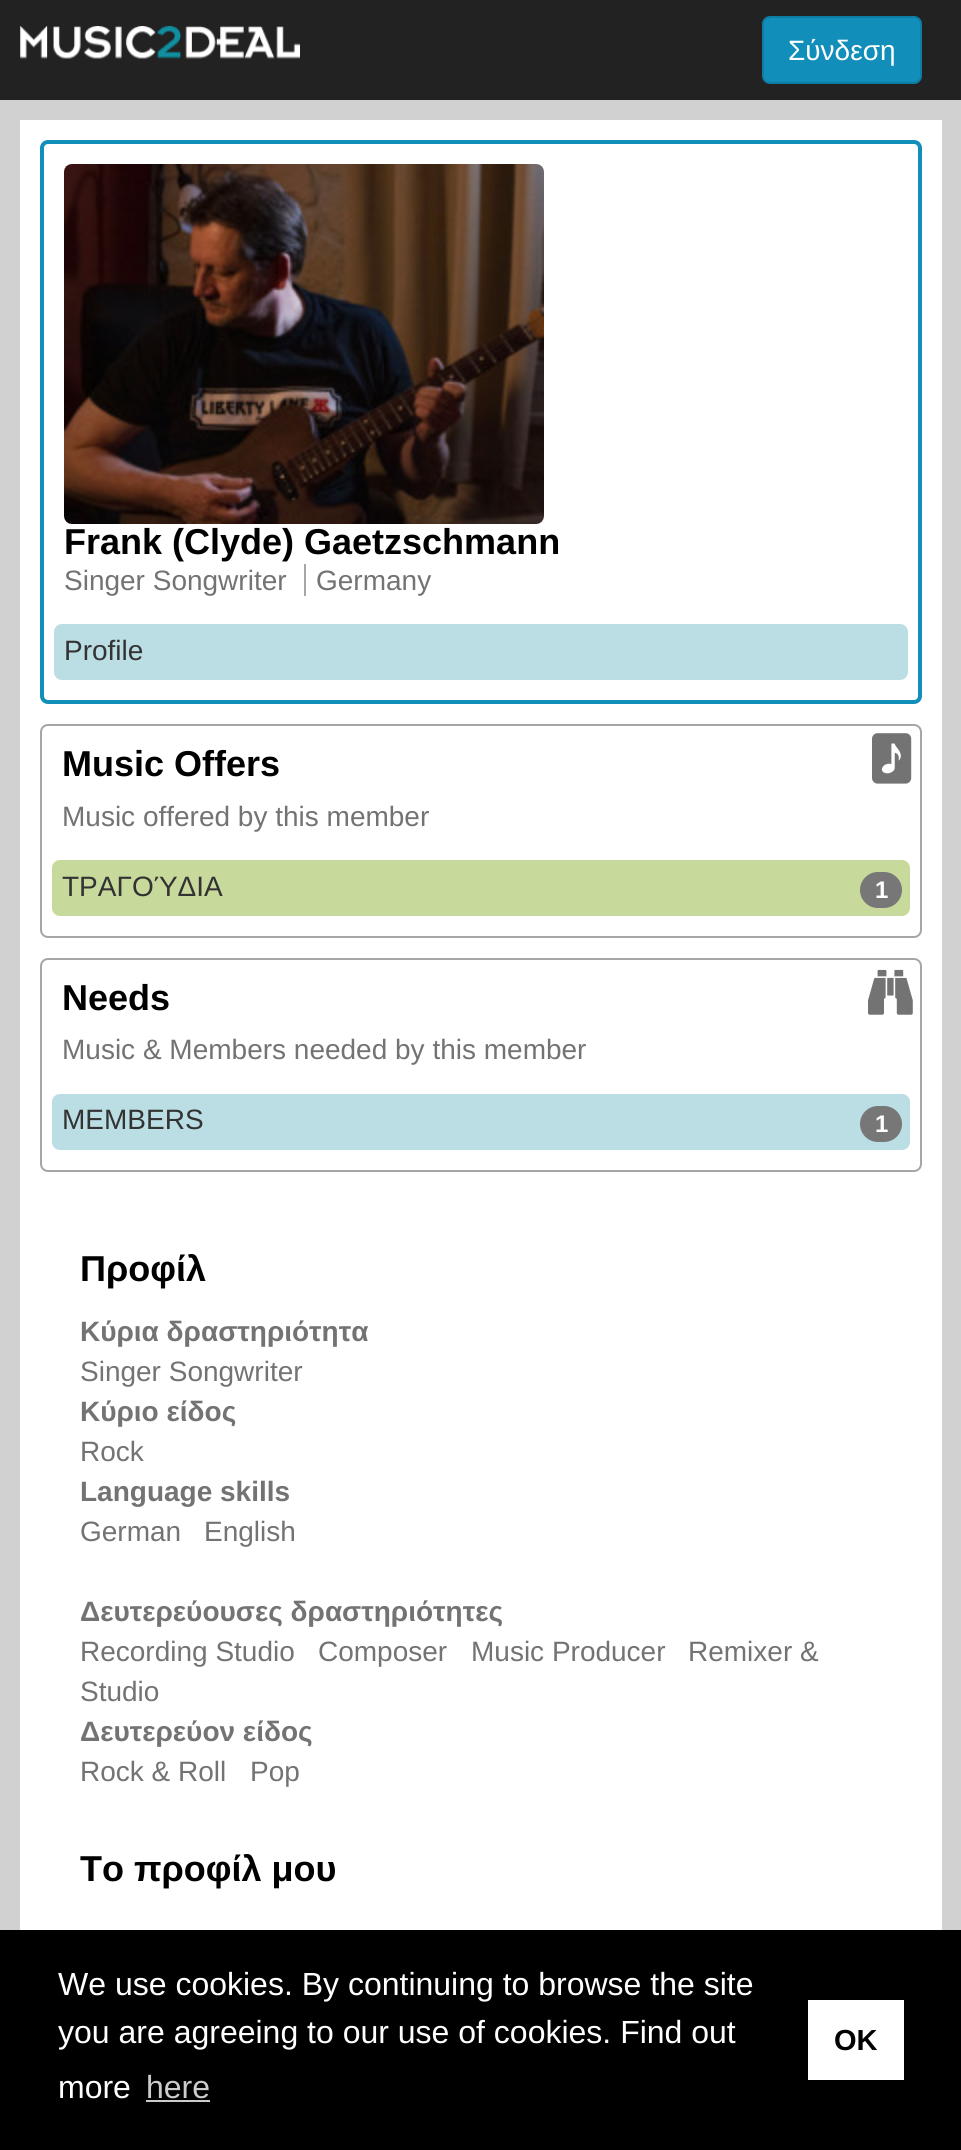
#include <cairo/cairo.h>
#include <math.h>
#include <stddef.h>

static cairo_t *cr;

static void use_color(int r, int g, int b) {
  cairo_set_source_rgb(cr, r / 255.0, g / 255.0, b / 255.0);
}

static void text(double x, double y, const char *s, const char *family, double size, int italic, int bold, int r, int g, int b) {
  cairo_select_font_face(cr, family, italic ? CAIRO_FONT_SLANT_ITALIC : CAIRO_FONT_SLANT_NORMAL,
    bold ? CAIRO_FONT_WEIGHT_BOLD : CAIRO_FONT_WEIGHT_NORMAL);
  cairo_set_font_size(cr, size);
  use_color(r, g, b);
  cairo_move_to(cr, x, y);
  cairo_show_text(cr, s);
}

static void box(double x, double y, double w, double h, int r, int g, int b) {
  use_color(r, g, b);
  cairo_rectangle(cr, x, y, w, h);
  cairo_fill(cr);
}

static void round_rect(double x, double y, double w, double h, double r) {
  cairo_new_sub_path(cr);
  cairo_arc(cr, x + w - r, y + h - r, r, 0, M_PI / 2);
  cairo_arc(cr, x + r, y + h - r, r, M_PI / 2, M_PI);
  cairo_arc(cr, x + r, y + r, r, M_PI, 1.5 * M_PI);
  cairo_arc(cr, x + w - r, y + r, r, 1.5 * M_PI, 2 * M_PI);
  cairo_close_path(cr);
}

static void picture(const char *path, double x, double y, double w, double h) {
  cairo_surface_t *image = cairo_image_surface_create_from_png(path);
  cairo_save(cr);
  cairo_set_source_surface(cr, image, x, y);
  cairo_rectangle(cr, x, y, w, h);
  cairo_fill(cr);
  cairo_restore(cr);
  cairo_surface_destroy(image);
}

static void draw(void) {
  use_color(209, 209, 209);
  cairo_paint(cr);
  box(0, 0, 961, 100, 34, 34, 34);
  picture("img_01.png", 20, 26, 280, 33);
  use_color(17, 142, 186);
  round_rect(763, 17, 158, 66, 7);
  cairo_fill_preserve(cr);
  use_color(15, 124, 163);
  cairo_stroke(cr);
  box(20, 120, 922, 1810, 255, 255, 255);
  round_rect(42, 142, 878, 560, 6);
  use_color(17, 142, 186);
  cairo_set_line_width(cr, 4);
  cairo_stroke(cr);
  picture("img_02.png", 64, 164, 480, 360);
  box(304, 564, 2, 32, 166, 166, 166);
  use_color(186, 222, 228);
  round_rect(54, 624, 854, 56, 8);
  cairo_fill(cr);
  round_rect(41, 725, 880, 212, 7);
  use_color(166, 166, 166);
  cairo_set_line_width(cr, 2);
  cairo_stroke(cr);
  picture("img_03.png", 872, 733, 40, 51);
  use_color(199, 218, 155);
  round_rect(52, 860, 858, 56, 8);
  cairo_fill(cr);
  use_color(119, 119, 119);
  round_rect(860, 872, 42, 36, 18);
  cairo_fill(cr);
  round_rect(41, 959, 880, 212, 7);
  use_color(166, 166, 166);
  cairo_stroke(cr);
  picture("img_04.png", 868, 969, 45, 46);
  use_color(186, 222, 228);
  round_rect(52, 1094, 858, 56, 8);
  cairo_fill(cr);
  use_color(119, 119, 119);
  round_rect(860, 1106, 42, 36, 18);
  cairo_fill(cr);
  box(0, 1930, 961, 220, 0, 0, 0);
  box(146, 2100, 64, 2, 204, 204, 204);
  box(808, 2000, 96, 80, 255, 255, 255);
  text(788, 60, "Σύνδεση", "Liberation Sans", 28, 0, 0, 255, 255, 255);
  text(64, 554, "Frank (Clyde) Gaetzschmann", "Liberation Sans", 36, 0, 1, 0, 0, 0);
  text(64, 590, "Singer Songwriter", "Liberation Sans", 28, 0, 0, 115, 115, 115);
  text(316, 590, "Germany", "Liberation Sans", 28, 0, 0, 115, 115, 115);
  text(64, 660, "Profile", "Liberation Sans", 28, 0, 0, 51, 51, 51);
  text(62, 776, "Music Offers", "Liberation Sans", 36, 0, 1, 0, 0, 0);
  text(62, 826, "Music offered by this member", "Liberation Sans", 28, 0, 0, 115, 115, 115);
  text(62, 896, "ΤΡΑΓΟΎΔΙΑ", "Liberation Sans", 28, 0, 0, 51, 51, 51);
  text(875, 898, "1", "Liberation Sans", 24, 0, 1, 255, 255, 255);
  text(62, 1010, "Needs", "Liberation Sans", 36, 0, 1, 0, 0, 0);
  text(62, 1059, "Music & Members needed by this member", "Liberation Sans", 28, 0, 0, 115, 115, 115);
  text(62, 1129, "MEMBERS", "Liberation Sans", 28, 0, 0, 51, 51, 51);
  text(875, 1132, "1", "Liberation Sans", 24, 0, 1, 255, 255, 255);
  text(80, 1281, "Προφίλ", "Liberation Sans", 36, 0, 1, 0, 0, 0);
  text(80, 1341, "Κύρια δραστηριότητα", "Liberation Sans", 28, 0, 1, 115, 115, 115);
  text(80, 1381, "Singer Songwriter", "Liberation Sans", 28, 0, 0, 115, 115, 115);
  text(80, 1421, "Κύριο είδος", "Liberation Sans", 28, 0, 1, 115, 115, 115);
  text(80, 1461, "Rock", "Liberation Sans", 28, 0, 0, 115, 115, 115);
  text(80, 1501, "Language skills", "Liberation Sans", 28, 0, 1, 115, 115, 115);
  text(80, 1541, "German", "Liberation Sans", 28, 0, 0, 115, 115, 115);
  text(204, 1541, "English", "Liberation Sans", 28, 0, 0, 115, 115, 115);
  text(80, 1621, "Δευτερεύουσες δραστηριότητες", "Liberation Sans", 28, 0, 1, 115, 115, 115);
  text(80, 1661, "Recording Studio", "Liberation Sans", 28, 0, 0, 115, 115, 115);
  text(318, 1661, "Composer", "Liberation Sans", 28, 0, 0, 115, 115, 115);
  text(471, 1661, "Music Producer", "Liberation Sans", 28, 0, 0, 115, 115, 115);
  text(688, 1661, "Remixer &", "Liberation Sans", 28, 0, 0, 115, 115, 115);
  text(80, 1701, "Studio", "Liberation Sans", 28, 0, 0, 115, 115, 115);
  text(80, 1741, "Δευτερεύον είδος", "Liberation Sans", 28, 0, 1, 115, 115, 115);
  text(80, 1781, "Rock & Roll", "Liberation Sans", 28, 0, 0, 115, 115, 115);
  text(250, 1781, "Pop", "Liberation Sans", 28, 0, 0, 115, 115, 115);
  text(80, 1881, "Το προφίλ μου", "Liberation Sans", 36, 0, 1, 0, 0, 0);
  text(58, 1995, "We use cookies. By continuing to browse the site", "Liberation Sans", 32, 0, 0, 255, 255, 255);
  text(58, 2043, "you are agreeing to our use of cookies. Find out", "Liberation Sans", 32, 0, 0, 255, 255, 255);
  text(58, 2098, "more", "Liberation Sans", 32, 0, 0, 255, 255, 255);
  text(146, 2098, "here", "Liberation Sans", 32, 0, 0, 204, 204, 204);
  text(834, 2050, "OK", "Liberation Sans", 29, 0, 1, 0, 0, 0);
}

int main(void) {
  cairo_surface_t *surface = cairo_image_surface_create(CAIRO_FORMAT_RGB24, 961, 2150);
  cr = cairo_create(surface);
  cairo_font_options_t *options = cairo_font_options_create();
  cairo_font_options_set_hint_metrics(options, CAIRO_HINT_METRICS_OFF);
  cairo_font_options_set_hint_style(options, CAIRO_HINT_STYLE_NONE);
  cairo_set_font_options(cr, options);
  cairo_set_miter_limit(cr, 4);
  draw();
  cairo_surface_write_to_png(surface, "out.png");
  cairo_font_options_destroy(options);
  cairo_destroy(cr);
  cairo_surface_destroy(surface);
  return 0;
}
